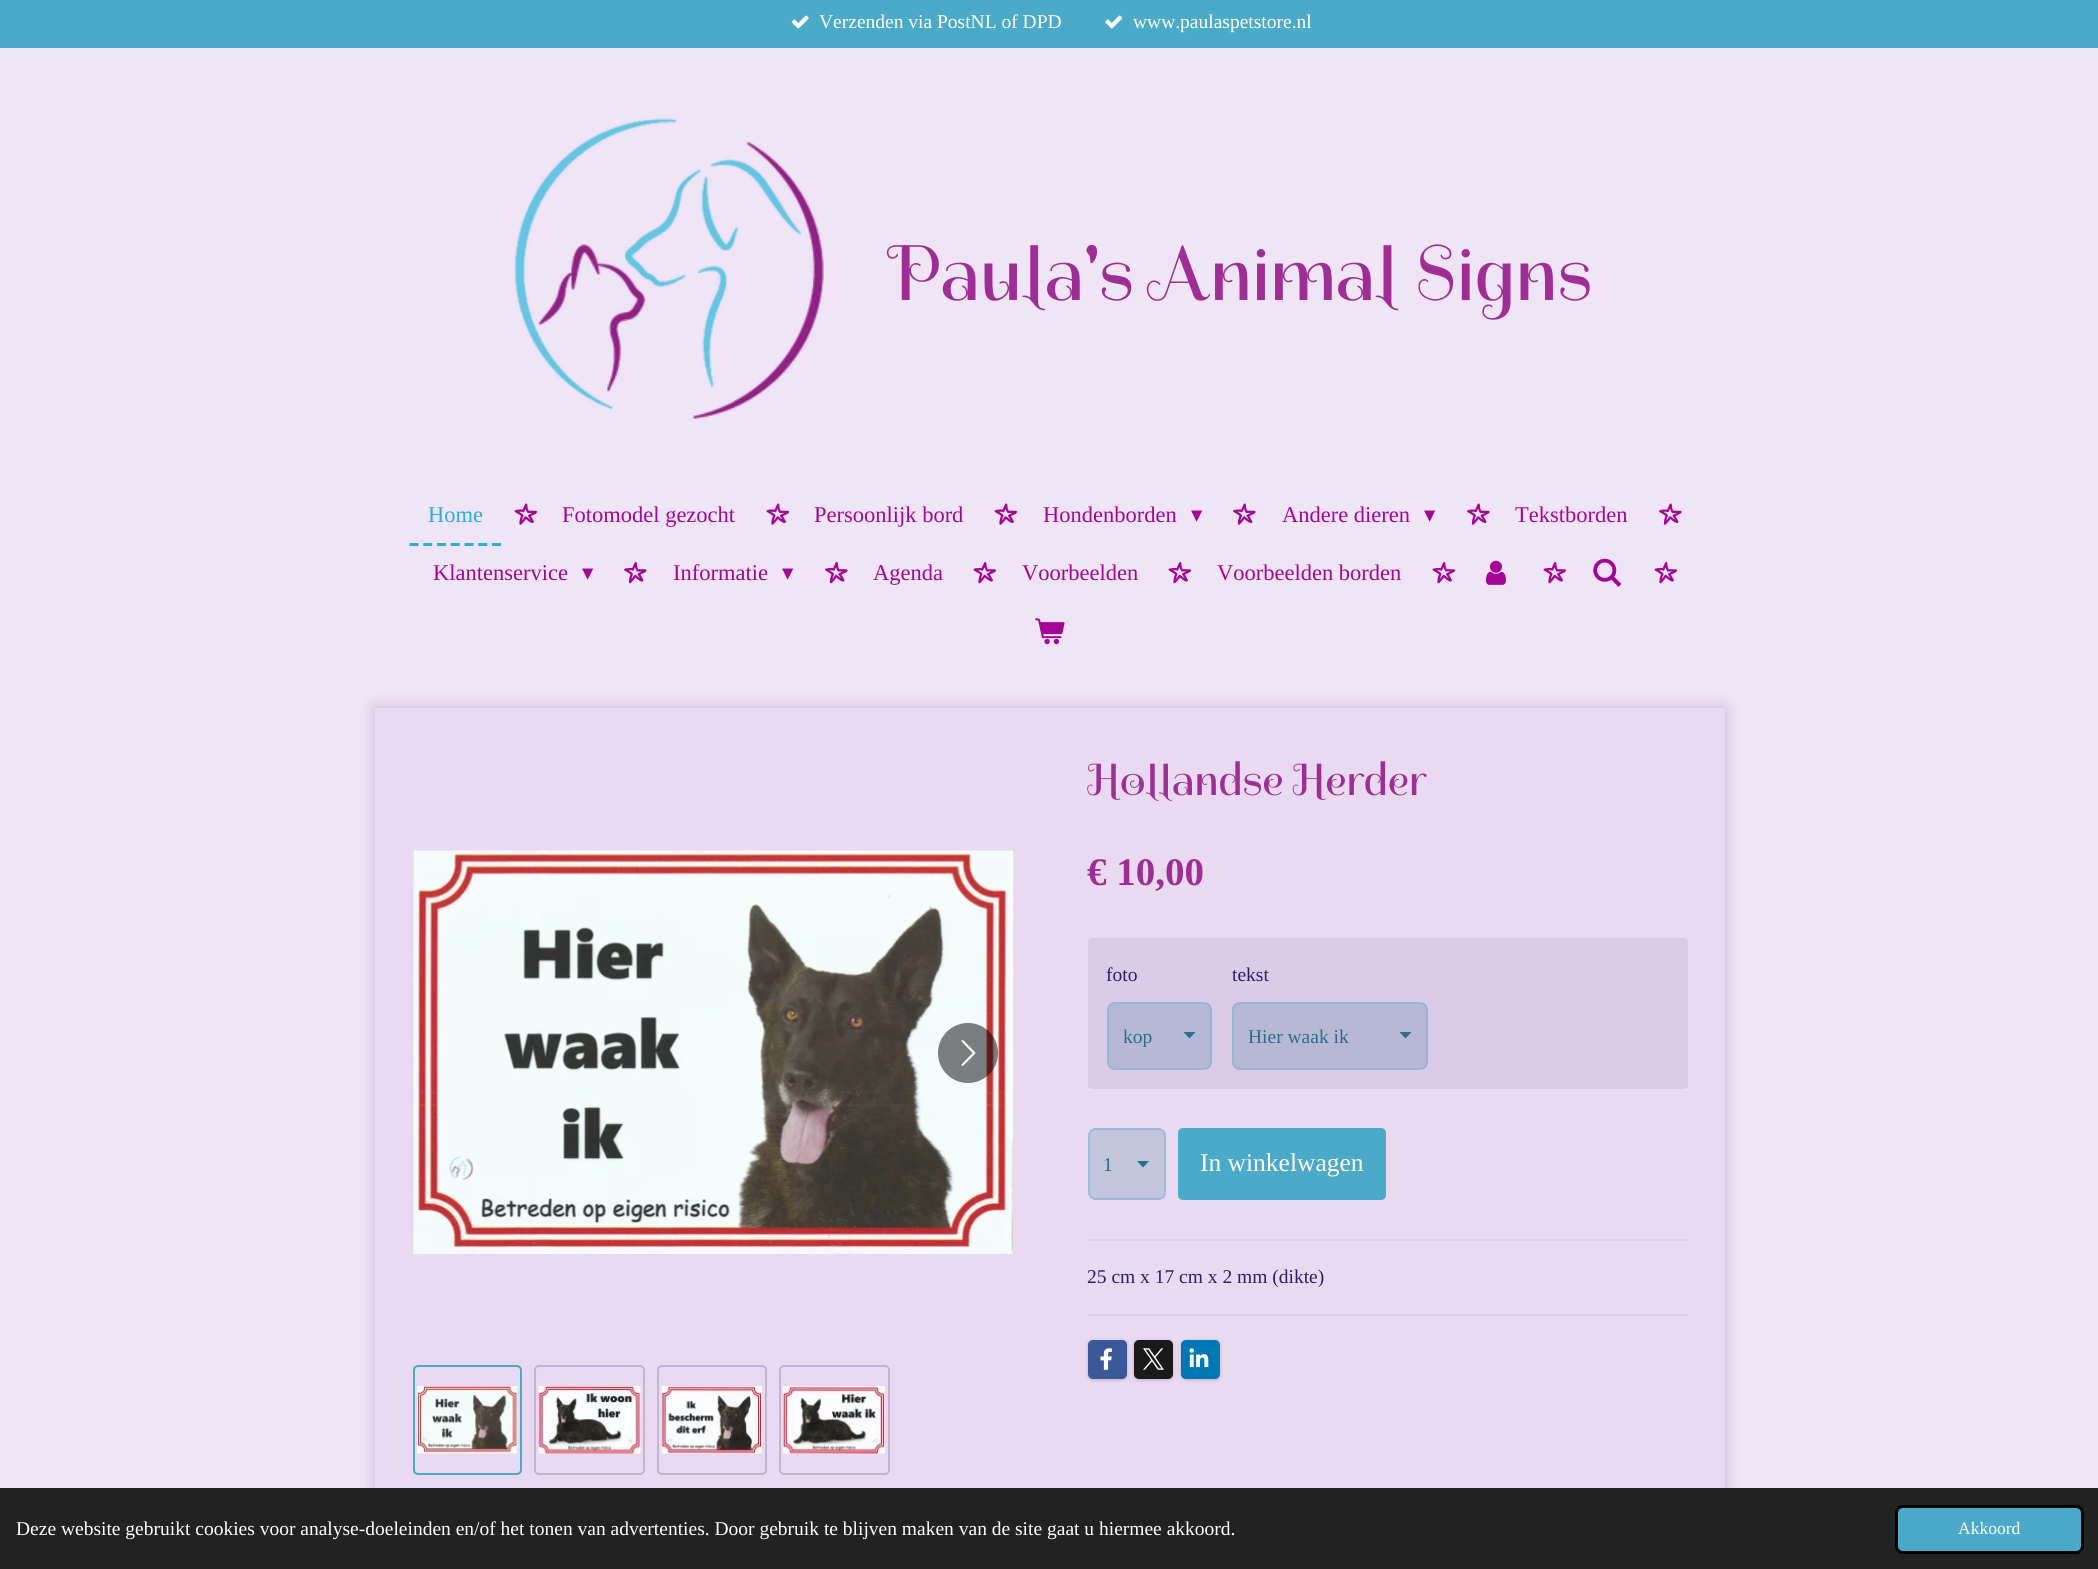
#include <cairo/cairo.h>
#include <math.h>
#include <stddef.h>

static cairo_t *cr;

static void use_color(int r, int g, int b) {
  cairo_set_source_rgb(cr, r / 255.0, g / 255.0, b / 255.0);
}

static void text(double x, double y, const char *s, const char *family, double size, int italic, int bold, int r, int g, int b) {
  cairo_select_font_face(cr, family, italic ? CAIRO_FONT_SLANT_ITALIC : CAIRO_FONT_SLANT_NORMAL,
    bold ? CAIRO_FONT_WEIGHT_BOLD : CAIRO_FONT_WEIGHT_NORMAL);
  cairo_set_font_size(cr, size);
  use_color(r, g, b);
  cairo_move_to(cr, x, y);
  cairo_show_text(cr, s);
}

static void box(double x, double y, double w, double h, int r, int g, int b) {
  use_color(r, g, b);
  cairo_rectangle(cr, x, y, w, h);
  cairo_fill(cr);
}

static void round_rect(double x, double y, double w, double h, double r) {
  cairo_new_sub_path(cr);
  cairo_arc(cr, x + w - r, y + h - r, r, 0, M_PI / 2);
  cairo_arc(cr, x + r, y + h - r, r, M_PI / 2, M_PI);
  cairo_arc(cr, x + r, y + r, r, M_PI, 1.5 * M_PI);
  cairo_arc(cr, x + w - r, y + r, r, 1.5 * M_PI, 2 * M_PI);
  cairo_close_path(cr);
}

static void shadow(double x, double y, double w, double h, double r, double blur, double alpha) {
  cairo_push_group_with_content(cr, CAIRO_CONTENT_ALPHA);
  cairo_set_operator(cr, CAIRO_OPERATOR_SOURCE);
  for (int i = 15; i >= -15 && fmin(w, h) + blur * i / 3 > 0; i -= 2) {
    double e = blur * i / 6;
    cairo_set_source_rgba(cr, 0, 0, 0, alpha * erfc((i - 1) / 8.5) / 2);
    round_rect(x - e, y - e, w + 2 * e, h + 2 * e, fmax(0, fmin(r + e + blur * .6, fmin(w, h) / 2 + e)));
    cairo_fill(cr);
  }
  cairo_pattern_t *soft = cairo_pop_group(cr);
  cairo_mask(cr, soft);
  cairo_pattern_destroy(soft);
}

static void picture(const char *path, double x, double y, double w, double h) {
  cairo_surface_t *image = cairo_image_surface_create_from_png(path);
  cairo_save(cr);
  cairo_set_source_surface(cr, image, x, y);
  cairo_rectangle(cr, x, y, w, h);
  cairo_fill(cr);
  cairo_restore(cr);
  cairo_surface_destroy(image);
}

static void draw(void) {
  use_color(240, 228, 247);
  cairo_paint(cr);
  box(0, 0, 2098, 48, 76, 170, 201);
  picture("img_01.png", 791, 15, 18, 14);
  picture("img_02.png", 1105, 15, 18, 14);
  picture("img_03.png", 514, 118, 310, 301);
  cairo_new_path(cr);
  cairo_move_to(cr, 409.5, 544.5);
  cairo_line_to(cr, 501, 544.5);
  use_color(40, 175, 219);
  cairo_set_line_width(cr, 3);
  cairo_set_dash(cr, (double[]){9, 4.75}, 2, 0);
  cairo_stroke(cr);
  picture("img_04.png", 514, 503, 23, 22);
  picture("img_04.png", 766, 503, 23, 22);
  picture("img_04.png", 994, 503, 23, 22);
  picture("img_05.png", 1233, 503, 23, 22);
  picture("img_05.png", 1467, 503, 23, 22);
  picture("img_05.png", 1659, 503, 23, 22);
  picture("img_06.png", 624, 562, 23, 22);
  picture("img_06.png", 825, 562, 23, 22);
  picture("img_07.png", 973, 562, 23, 22);
  picture("img_07.png", 1168, 562, 23, 22);
  picture("img_07.png", 1432, 562, 23, 22);
  picture("img_08.png", 1485, 560, 21, 25);
  picture("img_07.png", 1543, 562, 23, 22);
  picture("img_09.png", 1593, 558, 29, 29);
  picture("img_07.png", 1654, 562, 23, 22);
  picture("img_10.png", 1035, 618, 30, 27);
  use_color(0, 0, 0);
  shadow(375, 708, 1350, 825, 0, 7.5, 0.2);
  box(375, 708, 1350, 780, 233, 218, 242);
  picture("img_11.png", 413, 850, 600, 404);
  cairo_set_source_rgba(cr, 0, 0, 0, 0.5);
  cairo_arc(cr, 968, 1053, 30, 0, 2 * M_PI);
  cairo_fill(cr);
  picture("img_12.png", 961, 1040, 15, 26);
  round_rect(414, 1366, 107, 108, 4);
  use_color(76, 170, 201);
  cairo_set_line_width(cr, 2);
  cairo_set_dash(cr, NULL, 0, 0);
  cairo_stroke(cr);
  picture("img_13.png", 417, 1386, 101, 68);
  round_rect(535, 1366, 109, 108, 4);
  use_color(195, 181, 214);
  cairo_stroke(cr);
  picture("img_14.png", 538, 1386, 103, 68);
  round_rect(658, 1366, 108, 108, 4);
  cairo_stroke(cr);
  picture("img_15.png", 661, 1386, 101, 68);
  round_rect(780, 1366, 109, 108, 4);
  cairo_stroke(cr);
  picture("img_16.png", 783, 1386, 102, 68);
  use_color(218, 203, 231);
  round_rect(1088, 938, 600, 151, 4);
  cairo_fill(cr);
  use_color(183, 185, 212);
  round_rect(1107, 1002, 105, 68, 8);
  cairo_fill(cr);
  use_color(41, 111, 134);
  cairo_new_path(cr);
  cairo_move_to(cr, 1189.5, 1038.5);
  cairo_line_to(cr, 1183.5, 1032);
  cairo_line_to(cr, 1195.5, 1032);
  cairo_close_path(cr);
  cairo_fill(cr);
  round_rect(1108, 1003, 103, 66, 7);
  cairo_set_source_rgba(cr, 0.451, 0.714, 0.827, 0.5);
  cairo_stroke(cr);
  use_color(183, 185, 212);
  round_rect(1232, 1002, 196, 68, 8);
  cairo_fill(cr);
  use_color(41, 111, 134);
  cairo_new_path(cr);
  cairo_move_to(cr, 1405.5, 1038.5);
  cairo_line_to(cr, 1399.5, 1032);
  cairo_line_to(cr, 1411.5, 1032);
  cairo_close_path(cr);
  cairo_fill(cr);
  round_rect(1233, 1003, 194, 66, 7);
  cairo_set_source_rgba(cr, 0.451, 0.714, 0.827, 0.5);
  cairo_stroke(cr);
  use_color(195, 197, 220);
  round_rect(1088, 1128, 78, 72, 8);
  cairo_fill(cr);
  use_color(41, 111, 134);
  cairo_new_path(cr);
  cairo_move_to(cr, 1143, 1167.5);
  cairo_line_to(cr, 1137, 1161);
  cairo_line_to(cr, 1149, 1161);
  cairo_close_path(cr);
  cairo_fill(cr);
  round_rect(1089, 1129, 76, 70, 7);
  cairo_set_source_rgba(cr, 0.451, 0.714, 0.827, 0.5);
  cairo_stroke(cr);
  use_color(76, 170, 201);
  round_rect(1178, 1128, 208, 72, 5);
  cairo_fill(cr);
  box(1088, 1239, 600, 2, 220, 205, 232);
  box(1088, 1314, 600, 2, 220, 205, 232);
  use_color(0, 0, 0);
  shadow(1088, 1341, 39, 39, 5, 2, 0.2);
  use_color(59, 89, 152);
  round_rect(1088, 1340, 39, 39, 5);
  cairo_fill(cr);
  picture("img_17.png", 1100, 1348, 12, 22);
  use_color(0, 0, 0);
  shadow(1134, 1341, 39, 39, 5, 2, 0.2);
  use_color(26, 26, 26);
  round_rect(1134, 1340, 39, 39, 5);
  cairo_fill(cr);
  picture("img_18.png", 1143, 1348, 21, 22);
  use_color(0, 0, 0);
  shadow(1181, 1341, 39, 39, 5, 2, 0.2);
  use_color(0, 119, 181);
  round_rect(1181, 1340, 39, 39, 5);
  cairo_fill(cr);
  picture("img_19.png", 1189, 1348, 20, 20);
  box(0, 1488, 2098, 81, 34, 34, 34);
  use_color(76, 170, 201);
  round_rect(1896.5, 1506.5, 186, 46, 6.5);
  cairo_fill_preserve(cr);
  use_color(0, 0, 0);
  cairo_set_line_width(cr, 3);
  cairo_stroke(cr);
  text(819, 28, "Verzenden via PostNL of DPD", "Liberation Serif", 19.5, 0, 0, 255, 255, 255);
  text(1133, 28, "www.paulaspetstore.nl", "Liberation Serif", 19.5, 0, 0, 255, 255, 255);
  text(889, 300, "Paula's Animal Signs", "Spirax", 78.75, 0, 0, 157, 47, 148);
  text(428, 522, "Home", "Liberation Serif", 22.5, 0, 0, 40, 175, 219);
  text(562, 522, "Fotomodel gezocht", "Liberation Serif", 22.5, 0, 0, 163, 6, 150);
  text(814, 522, "Persoonlijk bord", "Liberation Serif", 22.5, 0, 0, 163, 6, 150);
  text(1043, 522, "Hondenborden", "Liberation Serif", 22.5, 0, 0, 163, 6, 150);
  text(1191, 522, "▾", "DejaVu Sans", 22.5, 0, 0, 163, 6, 150);
  text(1282, 522, "Andere dieren", "Liberation Serif", 22.5, 0, 0, 163, 6, 150);
  text(1424, 522, "▾", "DejaVu Sans", 22.5, 0, 0, 163, 6, 150);
  text(1515, 522, "Tekstborden", "Liberation Serif", 22.5, 0, 0, 163, 6, 150);
  text(433, 580, "Klantenservice", "Liberation Serif", 22.5, 0, 0, 163, 6, 150);
  text(582, 580, "▾", "DejaVu Sans", 22.5, 0, 0, 163, 6, 150);
  text(673, 580, "Informatie", "Liberation Serif", 22.5, 0, 0, 163, 6, 150);
  text(782, 580, "▾", "DejaVu Sans", 22.5, 0, 0, 163, 6, 150);
  text(873, 580, "Agenda", "Liberation Serif", 22.5, 0, 0, 163, 6, 150);
  text(1022, 580, "Voorbeelden", "Liberation Serif", 22.5, 0, 0, 163, 6, 150);
  text(1217, 580, "Voorbeelden borden", "Liberation Serif", 22.5, 0, 0, 163, 6, 150);
  text(1087, 795, "Hollandse Herder", "Spirax", 45, 0, 0, 157, 47, 148);
  text(1087, 885, "€ 10,00", "Liberation Serif", 39, 0, 1, 157, 47, 148);
  text(1106, 981, "foto", "Liberation Serif", 19.5, 0, 0, 42, 31, 104);
  cairo_save(cr);
  cairo_rectangle(cr, 1124, 1025, 58, 22);
  cairo_clip(cr);
  text(1123, 1043, "kop", "Liberation Serif", 19.5, 0, 0, 41, 111, 134);
  cairo_restore(cr);
  text(1232, 981, "tekst", "Liberation Serif", 19.5, 0, 0, 42, 31, 104);
  text(1248, 1043, "Hier waak ik", "Liberation Serif", 19.5, 0, 0, 41, 111, 134);
  text(1103, 1171, "1", "Liberation Serif", 19.5, 0, 0, 41, 111, 134);
  text(1200, 1171, "In winkelwagen", "Liberation Serif", 25.5, 0, 0, 255, 255, 255);
  text(1087, 1283, "25 cm x 17 cm x 2 mm (dikte)", "Liberation Serif", 19.5, 0, 0, 42, 31, 104);
  text(16, 1535, "Deze website gebruikt cookies voor analyse-doeleinden en/of het tonen van advertenties. Door gebruik te blijven maken van de site gaat u hiermee akkoord.", "Liberation Serif", 19.5, 0, 0, 255, 255, 255);
  text(1958, 1534, "Akkoord", "Liberation Serif", 17.5, 0, 0, 255, 255, 255);
}

int main(void) {
  cairo_surface_t *surface = cairo_image_surface_create(CAIRO_FORMAT_RGB24, 2098, 1569);
  cr = cairo_create(surface);
  cairo_font_options_t *options = cairo_font_options_create();
  cairo_font_options_set_hint_metrics(options, CAIRO_HINT_METRICS_OFF);
  cairo_font_options_set_hint_style(options, CAIRO_HINT_STYLE_NONE);
  cairo_set_font_options(cr, options);
  cairo_set_miter_limit(cr, 4);
  draw();
  cairo_surface_write_to_png(surface, "out.png");
  cairo_font_options_destroy(options);
  cairo_destroy(cr);
  cairo_surface_destroy(surface);
  return 0;
}
